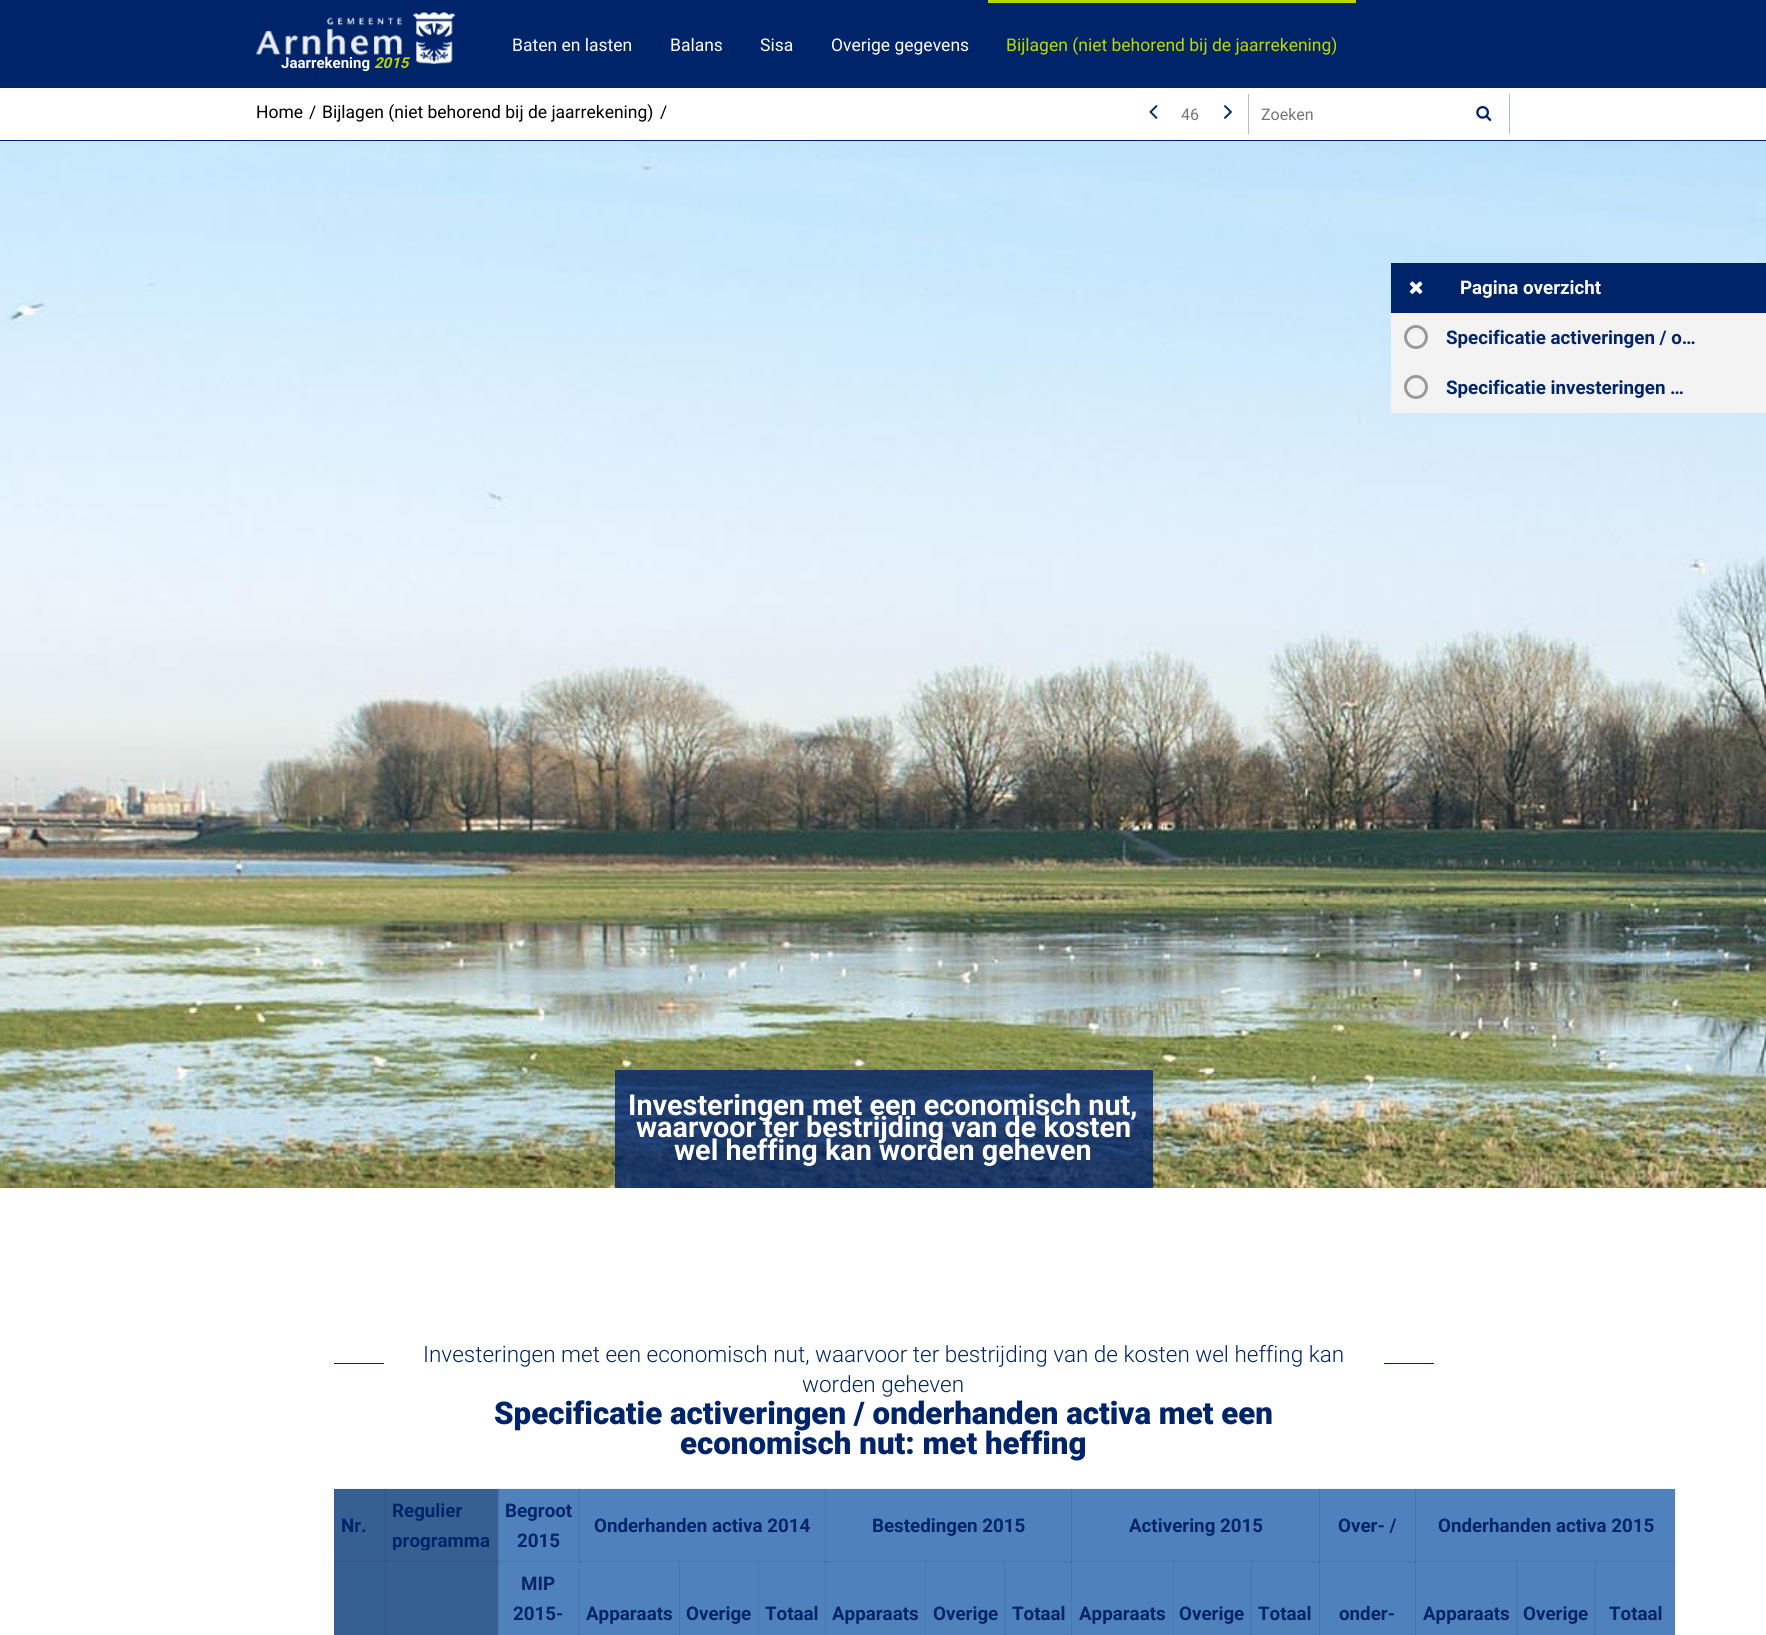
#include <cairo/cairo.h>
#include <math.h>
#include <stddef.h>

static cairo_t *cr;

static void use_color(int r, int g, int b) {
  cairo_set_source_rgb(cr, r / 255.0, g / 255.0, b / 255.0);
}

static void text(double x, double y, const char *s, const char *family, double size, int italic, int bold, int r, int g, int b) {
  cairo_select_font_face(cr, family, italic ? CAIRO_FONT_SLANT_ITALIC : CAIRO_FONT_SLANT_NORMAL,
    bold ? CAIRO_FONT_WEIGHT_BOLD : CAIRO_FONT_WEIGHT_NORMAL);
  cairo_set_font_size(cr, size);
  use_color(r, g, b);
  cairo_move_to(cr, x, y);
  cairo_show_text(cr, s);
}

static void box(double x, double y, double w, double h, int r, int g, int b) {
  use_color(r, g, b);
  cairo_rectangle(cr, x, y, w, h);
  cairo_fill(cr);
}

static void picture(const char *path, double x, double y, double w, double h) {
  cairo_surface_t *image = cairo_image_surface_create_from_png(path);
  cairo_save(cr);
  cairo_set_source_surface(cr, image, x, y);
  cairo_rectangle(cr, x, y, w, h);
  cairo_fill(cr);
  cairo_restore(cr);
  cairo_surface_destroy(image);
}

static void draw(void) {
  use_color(255, 255, 255);
  cairo_paint(cr);
  box(0, 0, 1766, 88, 0, 36, 105);
  box(988, 0, 368, 3, 190, 214, 0);
  picture("img_02.png", 256, 12, 200, 52);
  box(0, 140, 1766, 1, 0, 36, 105);
  picture("img_03.png", 1149, 105, 9, 14);
  picture("img_04.png", 1224, 105, 8, 14);
  box(1248, 94, 1, 40, 179, 189, 210);
  box(1509, 94, 1, 40, 179, 189, 210);
  picture("img_05.png", 1476, 106, 16, 16);
  picture("img_06.png", 0, 141, 1766, 1047);
  box(1391, 263, 375, 50, 0, 36, 105);
  picture("img_07.png", 1409, 281, 14, 13);
  box(1391, 313, 375, 100, 243, 243, 243);
  cairo_arc(cr, 1416, 337, 10.5, 0, 2 * M_PI);
  use_color(153, 153, 153);
  cairo_set_line_width(cr, 3);
  cairo_stroke(cr);
  cairo_arc(cr, 1416, 387, 10.5, 0, 2 * M_PI);
  cairo_stroke(cr);
  box(334, 1363, 1100, 1, 0, 36, 105);
  box(384, 1363, 1000, 1, 255, 255, 255);
  box(334, 1363, 1, 1, 0, 24, 70);
  box(334, 1489, 164, 61, 55, 96, 146);
  box(498, 1489, 918, 61, 79, 129, 189);
  box(1415, 1488, 261, 1, 245, 245, 245);
  cairo_set_source_rgba(cr, 0, 0, 0, 0.04);
  cairo_rectangle(cr, 1415, 1488, 1, 62);
  cairo_fill(cr);
  cairo_rectangle(cr, 1319, 1488, 97, 1);
  cairo_fill(cr);
  cairo_rectangle(cr, 1319, 1488, 1, 62);
  cairo_fill(cr);
  cairo_rectangle(cr, 1071, 1488, 249, 1);
  cairo_fill(cr);
  cairo_rectangle(cr, 1071, 1488, 1, 62);
  cairo_fill(cr);
  cairo_rectangle(cr, 825, 1488, 248, 1);
  cairo_fill(cr);
  cairo_rectangle(cr, 825, 1488, 1, 62);
  cairo_fill(cr);
  cairo_rectangle(cr, 579, 1488, 247, 1);
  cairo_fill(cr);
  cairo_rectangle(cr, 579, 1488, 1, 62);
  cairo_fill(cr);
  cairo_rectangle(cr, 498, 1488, 82, 1);
  cairo_fill(cr);
  cairo_rectangle(cr, 498, 1488, 1, 62);
  cairo_fill(cr);
  cairo_rectangle(cr, 385, 1488, 114, 1);
  cairo_fill(cr);
  cairo_rectangle(cr, 385, 1488, 1, 62);
  cairo_fill(cr);
  cairo_rectangle(cr, 334, 1488, 52, 1);
  cairo_fill(cr);
  cairo_rectangle(cr, 385, 1488, 1, 62);
  cairo_fill(cr);
  cairo_rectangle(cr, 334, 1488, 1, 62);
  cairo_fill(cr);
  cairo_rectangle(cr, 498, 1488, 1, 62);
  cairo_fill(cr);
  cairo_rectangle(cr, 579, 1488, 1, 62);
  cairo_fill(cr);
  cairo_rectangle(cr, 825, 1488, 1, 62);
  cairo_fill(cr);
  cairo_rectangle(cr, 1071, 1488, 1, 62);
  cairo_fill(cr);
  cairo_rectangle(cr, 1319, 1488, 1, 62);
  cairo_fill(cr);
  cairo_rectangle(cr, 1415, 1488, 1, 62);
  cairo_fill(cr);
  box(1416, 1489, 259, 74, 79, 129, 189);
  cairo_set_source_rgba(cr, 0, 0, 0, 0.04);
  cairo_rectangle(cr, 1595, 1561, 81, 1);
  cairo_fill(cr);
  cairo_rectangle(cr, 1675, 1561, 1, 74);
  cairo_fill(cr);
  cairo_rectangle(cr, 1675, 1488, 1, 75);
  cairo_fill(cr);
  box(498, 1550, 918, 13, 79, 129, 189);
  box(498, 1563, 1177, 72, 79, 129, 189);
  cairo_set_source_rgba(cr, 0, 0, 0, 0.04);
  cairo_rectangle(cr, 1595, 1561, 1, 74);
  cairo_fill(cr);
  cairo_rectangle(cr, 1516, 1561, 80, 1);
  cairo_fill(cr);
  cairo_rectangle(cr, 1516, 1561, 1, 74);
  cairo_fill(cr);
  cairo_rectangle(cr, 1415, 1561, 103, 1);
  cairo_fill(cr);
  cairo_rectangle(cr, 1415, 1561, 1, 74);
  cairo_fill(cr);
  cairo_rectangle(cr, 1319, 1561, 97, 1);
  cairo_fill(cr);
  cairo_rectangle(cr, 1415, 1561, 1, 74);
  cairo_fill(cr);
  cairo_rectangle(cr, 1516, 1561, 1, 74);
  cairo_fill(cr);
  cairo_rectangle(cr, 1595, 1561, 1, 74);
  cairo_fill(cr);
  cairo_rectangle(cr, 1415, 1561, 261, 1);
  cairo_fill(cr);
  cairo_rectangle(cr, 1415, 1550, 1, 13);
  cairo_fill(cr);
  box(334, 1550, 164, 13, 55, 96, 146);
  cairo_set_source_rgba(cr, 0, 0, 0, 0.04);
  cairo_rectangle(cr, 1415, 1550, 1, 13);
  cairo_fill(cr);
  cairo_rectangle(cr, 1319, 1561, 1, 74);
  cairo_fill(cr);
  cairo_rectangle(cr, 1251, 1561, 69, 1);
  cairo_fill(cr);
  cairo_rectangle(cr, 1319, 1561, 1, 74);
  cairo_fill(cr);
  cairo_rectangle(cr, 1319, 1561, 97, 1);
  cairo_fill(cr);
  cairo_rectangle(cr, 1319, 1550, 1, 13);
  cairo_fill(cr);
  cairo_rectangle(cr, 1319, 1550, 1, 13);
  cairo_fill(cr);
  cairo_rectangle(cr, 1251, 1561, 1, 74);
  cairo_fill(cr);
  cairo_rectangle(cr, 1173, 1561, 80, 1);
  cairo_fill(cr);
  cairo_rectangle(cr, 1173, 1561, 1, 74);
  cairo_fill(cr);
  cairo_rectangle(cr, 1071, 1561, 103, 1);
  cairo_fill(cr);
  cairo_rectangle(cr, 1071, 1561, 1, 74);
  cairo_fill(cr);
  cairo_rectangle(cr, 1004, 1561, 69, 1);
  cairo_fill(cr);
  cairo_rectangle(cr, 1071, 1561, 1, 74);
  cairo_fill(cr);
  cairo_rectangle(cr, 1173, 1561, 1, 74);
  cairo_fill(cr);
  cairo_rectangle(cr, 1251, 1561, 1, 74);
  cairo_fill(cr);
  cairo_rectangle(cr, 1071, 1561, 249, 1);
  cairo_fill(cr);
  cairo_rectangle(cr, 1071, 1550, 1, 13);
  cairo_fill(cr);
  cairo_rectangle(cr, 1071, 1550, 1, 13);
  cairo_fill(cr);
  cairo_rectangle(cr, 1004, 1561, 1, 74);
  cairo_fill(cr);
  cairo_rectangle(cr, 925, 1561, 80, 1);
  cairo_fill(cr);
  cairo_rectangle(cr, 925, 1561, 1, 74);
  cairo_fill(cr);
  cairo_rectangle(cr, 825, 1561, 101, 1);
  cairo_fill(cr);
  cairo_rectangle(cr, 825, 1561, 1, 74);
  cairo_fill(cr);
  cairo_rectangle(cr, 758, 1561, 68, 1);
  cairo_fill(cr);
  cairo_rectangle(cr, 825, 1561, 1, 74);
  cairo_fill(cr);
  cairo_rectangle(cr, 925, 1561, 1, 74);
  cairo_fill(cr);
  cairo_rectangle(cr, 1004, 1561, 1, 74);
  cairo_fill(cr);
  cairo_rectangle(cr, 825, 1561, 248, 1);
  cairo_fill(cr);
  cairo_rectangle(cr, 825, 1550, 1, 13);
  cairo_fill(cr);
  cairo_rectangle(cr, 825, 1550, 1, 13);
  cairo_fill(cr);
  cairo_rectangle(cr, 758, 1561, 1, 74);
  cairo_fill(cr);
  cairo_rectangle(cr, 679, 1561, 80, 1);
  cairo_fill(cr);
  cairo_rectangle(cr, 679, 1561, 1, 74);
  cairo_fill(cr);
  cairo_rectangle(cr, 579, 1561, 101, 1);
  cairo_fill(cr);
  cairo_rectangle(cr, 579, 1561, 1, 74);
  cairo_fill(cr);
  cairo_rectangle(cr, 498, 1561, 82, 1);
  cairo_fill(cr);
  cairo_rectangle(cr, 579, 1561, 1, 74);
  cairo_fill(cr);
  cairo_rectangle(cr, 679, 1561, 1, 74);
  cairo_fill(cr);
  cairo_rectangle(cr, 758, 1561, 1, 74);
  cairo_fill(cr);
  cairo_rectangle(cr, 579, 1561, 247, 1);
  cairo_fill(cr);
  cairo_rectangle(cr, 579, 1550, 1, 13);
  cairo_fill(cr);
  cairo_rectangle(cr, 579, 1550, 1, 13);
  cairo_fill(cr);
  cairo_rectangle(cr, 498, 1561, 1, 74);
  cairo_fill(cr);
  cairo_rectangle(cr, 385, 1561, 114, 1);
  cairo_fill(cr);
  cairo_rectangle(cr, 498, 1561, 1, 74);
  cairo_fill(cr);
  cairo_rectangle(cr, 498, 1561, 82, 1);
  cairo_fill(cr);
  cairo_rectangle(cr, 498, 1550, 1, 13);
  cairo_fill(cr);
  cairo_rectangle(cr, 498, 1550, 1, 13);
  cairo_fill(cr);
  box(334, 1563, 164, 72, 55, 96, 146);
  cairo_set_source_rgba(cr, 0, 0, 0, 0.04);
  cairo_rectangle(cr, 385, 1561, 1, 74);
  cairo_fill(cr);
  cairo_rectangle(cr, 334, 1561, 52, 1);
  cairo_fill(cr);
  cairo_rectangle(cr, 385, 1561, 1, 74);
  cairo_fill(cr);
  cairo_rectangle(cr, 385, 1561, 114, 1);
  cairo_fill(cr);
  cairo_rectangle(cr, 385, 1550, 1, 13);
  cairo_fill(cr);
  cairo_rectangle(cr, 385, 1550, 1, 13);
  cairo_fill(cr);
  cairo_rectangle(cr, 334, 1561, 1, 74);
  cairo_fill(cr);
  cairo_rectangle(cr, 334, 1561, 52, 1);
  cairo_fill(cr);
  cairo_rectangle(cr, 334, 1550, 1, 13);
  cairo_fill(cr);
  cairo_set_source_rgba(cr, 0, 0.141, 0.412, 0.8);
  cairo_rectangle(cr, 615, 1070, 538, 118);
  cairo_fill(cr);
  text(512, 51, "Baten en lasten", "Roboto", 17.5, 0, 0, 255, 255, 255);
  text(670, 51, "Balans", "Roboto", 17.5, 0, 0, 255, 255, 255);
  box(721, 47, 1, 1, 74, 99, 148);
  text(760, 51, "Sisa", "Roboto", 17.5, 0, 0, 255, 255, 255);
  text(831, 51, "Overige gegevens", "Roboto", 17.5, 0, 0, 255, 255, 255);
  box(967, 47, 1, 1, 161, 174, 200);
  text(1006, 51, "Bijlagen (niet behorend bij de jaarrekening)", "Roboto", 17.5, 0, 0, 190, 214, 0);
  picture("img_01.png", 1336, 46, 1, 2);
  text(281, 68, "Jaarrekening", "Roboto", 15, 0, 1, 255, 255, 255);
  text(374, 68, "2015", "Roboto", 15, 1, 1, 190, 214, 0);
  text(256, 118, "Home", "Roboto", 17.5, 0, 0, 0, 0, 0);
  text(309, 118, "/", "Roboto", 17.5, 0, 0, 0, 0, 0);
  text(322, 118, "Bijlagen (niet behorend bij de jaarrekening)", "Roboto", 17.5, 0, 0, 0, 0, 0);
  text(660, 118, "/", "Roboto", 17.5, 0, 0, 0, 0, 0);
  text(1181, 120, "46", "Roboto", 16, 0, 0, 117, 117, 117);
  text(1261, 120, "Zoeken", "Roboto", 16, 0, 0, 117, 117, 117);
  text(1460, 294, "Pagina overzicht", "Roboto", 18.75, 0, 1, 255, 255, 255);
  text(1446, 344, "Specificatie activeringen / o…", "Roboto", 18.75, 0, 1, 0, 36, 105);
  text(1446, 394, "Specificatie investeringen …", "Roboto", 18.75, 0, 1, 0, 36, 105);
  text(423, 1362, "Investeringen met een economisch nut, waarvoor ter bestrijding van de kosten wel heffing kan", "Roboto Light", 22.5, 0, 0, 0, 36, 105);
  text(802, 1392, "worden geheven", "Roboto Light", 22.5, 0, 0, 0, 36, 105);
  text(494, 1424, "Specificatie activeringen / onderhanden activa met een", "Roboto Black", 31.25, 0, 0, 0, 36, 105);
  text(680, 1454, "economisch nut: met heffing", "Roboto Black", 31.25, 0, 0, 0, 36, 105);
  text(341, 1532, "Nr.", "Roboto", 18.75, 0, 1, 0, 36, 105);
  text(392, 1517, "Regulier", "Roboto", 18.75, 0, 1, 0, 36, 105);
  cairo_save(cr);
  cairo_rectangle(cr, 334, 1488, 1100, 62);
  cairo_clip(cr);
  text(392, 1547, "programma", "Roboto", 18.75, 0, 1, 0, 36, 105);
  cairo_restore(cr);
  text(505, 1517, "Begroot", "Roboto", 18.75, 0, 1, 0, 36, 105);
  text(517, 1547, "2015", "Roboto", 18.75, 0, 1, 0, 36, 105);
  text(594, 1532, "Onderhanden activa 2014", "Roboto", 18.75, 0, 1, 0, 36, 105);
  text(872, 1532, "Bestedingen 2015", "Roboto", 18.75, 0, 1, 0, 36, 105);
  text(1129, 1532, "Activering 2015", "Roboto", 18.75, 0, 1, 0, 36, 105);
  text(1338, 1532, "Over- /", "Roboto", 18.75, 0, 1, 0, 36, 105);
  text(1438, 1532, "Onderhanden activa 2015", "Roboto", 18.75, 0, 1, 0, 36, 105);
  text(521, 1590, "MIP", "Roboto", 18.75, 0, 1, 0, 36, 105);
  text(513, 1620, "2015-", "Roboto", 18.75, 0, 1, 0, 36, 105);
  text(586, 1620, "Apparaats", "Roboto", 18.75, 0, 1, 0, 36, 105);
  text(686, 1620, "Overige", "Roboto", 18.75, 0, 1, 0, 36, 105);
  text(765, 1620, "Totaal", "Roboto", 18.75, 0, 1, 0, 36, 105);
  text(832, 1620, "Apparaats", "Roboto", 18.75, 0, 1, 0, 36, 105);
  text(933, 1620, "Overige", "Roboto", 18.75, 0, 1, 0, 36, 105);
  text(1012, 1620, "Totaal", "Roboto", 18.75, 0, 1, 0, 36, 105);
  text(1079, 1620, "Apparaats", "Roboto", 18.75, 0, 1, 0, 36, 105);
  text(1179, 1620, "Overige", "Roboto", 18.75, 0, 1, 0, 36, 105);
  text(1258, 1620, "Totaal", "Roboto", 18.75, 0, 1, 0, 36, 105);
  text(1339, 1620, "onder-", "Roboto", 18.75, 0, 1, 0, 36, 105);
  text(1423, 1620, "Apparaats", "Roboto", 18.75, 0, 1, 0, 36, 105);
  text(1523, 1620, "Overige", "Roboto", 18.75, 0, 1, 0, 36, 105);
  text(1609, 1620, "Totaal", "Roboto", 18.75, 0, 1, 0, 36, 105);
  text(628, 1115, "Investeringen met een economisch nut,", "Roboto", 28.75, 0, 1, 255, 255, 255);
  text(636, 1137, "waarvoor ter bestrijding van de kosten", "Roboto", 28.75, 0, 1, 255, 255, 255);
  text(674, 1160, "wel heffing kan worden geheven", "Roboto", 28.75, 0, 1, 255, 255, 255);
}

int main(void) {
  cairo_surface_t *surface = cairo_image_surface_create(CAIRO_FORMAT_RGB24, 1766, 1635);
  cr = cairo_create(surface);
  cairo_font_options_t *options = cairo_font_options_create();
  cairo_font_options_set_hint_metrics(options, CAIRO_HINT_METRICS_OFF);
  cairo_font_options_set_hint_style(options, CAIRO_HINT_STYLE_NONE);
  cairo_set_font_options(cr, options);
  cairo_set_miter_limit(cr, 4);
  draw();
  cairo_surface_write_to_png(surface, "out.png");
  cairo_font_options_destroy(options);
  cairo_destroy(cr);
  cairo_surface_destroy(surface);
  return 0;
}
